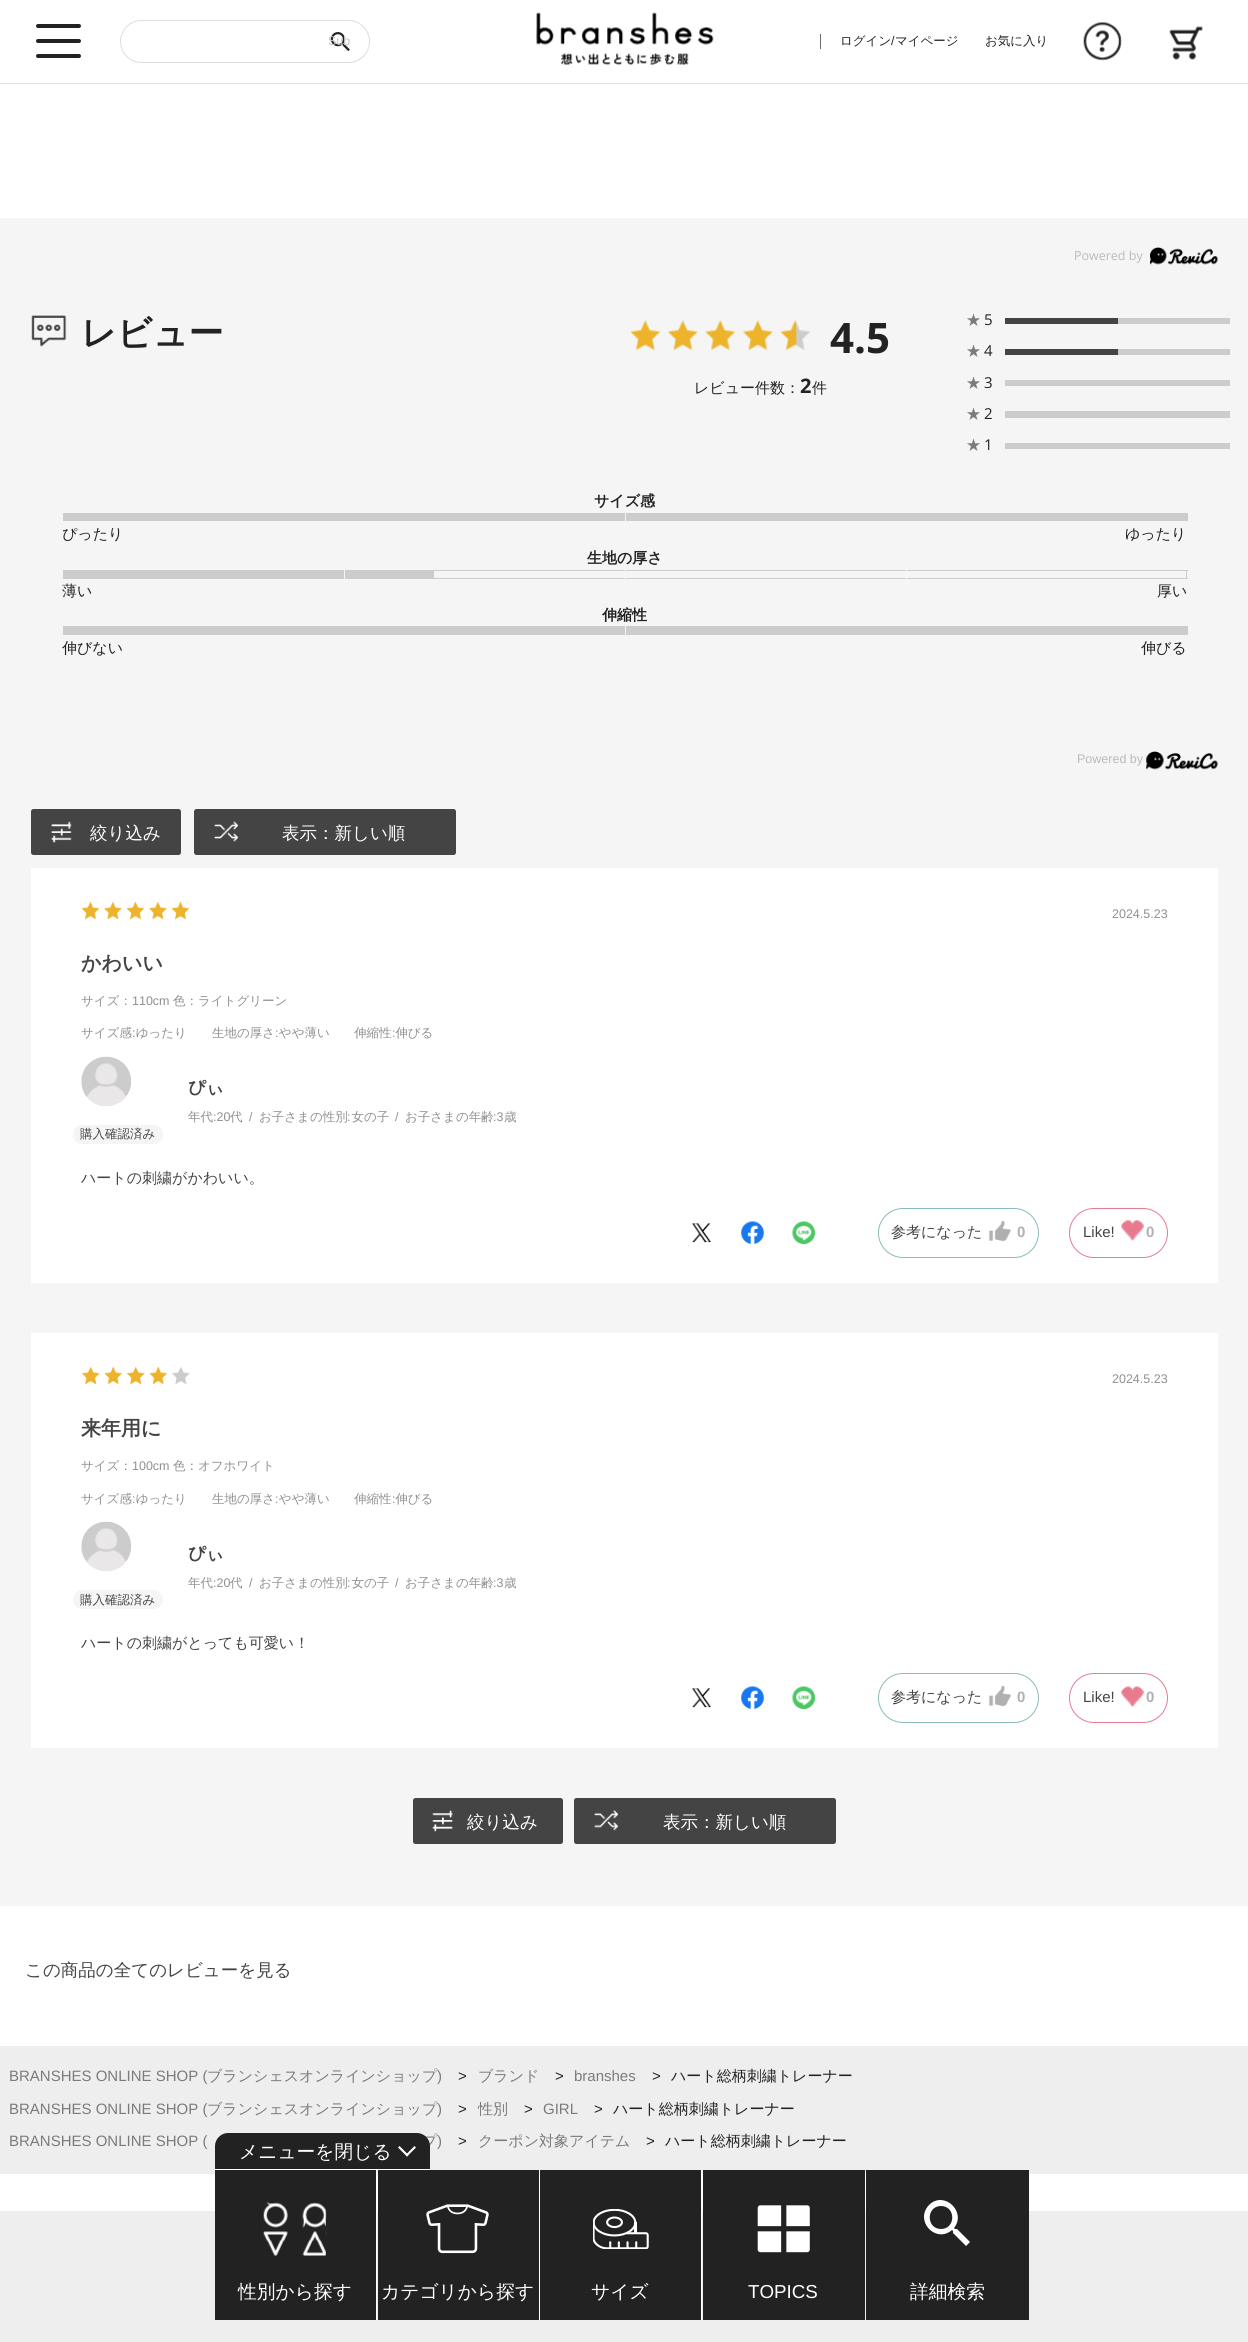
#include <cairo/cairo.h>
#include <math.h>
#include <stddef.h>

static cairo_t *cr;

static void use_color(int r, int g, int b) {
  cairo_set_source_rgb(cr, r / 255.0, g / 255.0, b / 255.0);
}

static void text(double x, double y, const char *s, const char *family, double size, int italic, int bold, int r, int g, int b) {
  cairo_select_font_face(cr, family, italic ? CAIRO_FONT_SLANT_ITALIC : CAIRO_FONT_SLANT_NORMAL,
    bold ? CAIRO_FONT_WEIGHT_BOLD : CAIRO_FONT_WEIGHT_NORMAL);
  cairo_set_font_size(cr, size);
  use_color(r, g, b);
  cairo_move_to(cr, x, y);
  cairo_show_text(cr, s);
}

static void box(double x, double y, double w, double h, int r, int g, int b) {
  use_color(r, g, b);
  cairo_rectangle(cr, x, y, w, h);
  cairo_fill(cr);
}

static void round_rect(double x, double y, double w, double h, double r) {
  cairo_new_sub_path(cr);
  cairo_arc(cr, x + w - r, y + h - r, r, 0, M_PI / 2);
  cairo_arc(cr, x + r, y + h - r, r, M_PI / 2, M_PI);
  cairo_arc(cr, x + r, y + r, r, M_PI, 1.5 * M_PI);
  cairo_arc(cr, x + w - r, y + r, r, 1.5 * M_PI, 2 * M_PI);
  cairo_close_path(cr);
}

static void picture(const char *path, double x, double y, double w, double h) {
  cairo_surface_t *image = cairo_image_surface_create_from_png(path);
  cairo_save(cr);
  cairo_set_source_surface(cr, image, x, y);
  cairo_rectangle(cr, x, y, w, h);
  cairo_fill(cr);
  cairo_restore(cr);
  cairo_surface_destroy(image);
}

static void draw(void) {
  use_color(255, 255, 255);
  cairo_paint(cr);
  box(0, 83, 1248, 1, 221, 221, 221);
  use_color(34, 34, 34);
  round_rect(36, 24, 45, 4, 2);
  cairo_fill(cr);
  round_rect(36, 39, 45, 4, 2);
  cairo_fill(cr);
  round_rect(36, 54, 45, 4, 2);
  cairo_fill(cr);
  round_rect(120.5, 20.5, 249, 42, 21);
  use_color(221, 221, 221);
  cairo_set_line_width(cr, 1);
  cairo_stroke(cr);
  picture("img_01.png", 330, 32, 20, 20);
  picture("img_02.png", 536, 12, 178, 53);
  box(820, 34, 1, 15, 107, 107, 107);
  picture("img_03.png", 1083, 22, 39, 39);
  picture("img_04.png", 1169, 26, 34, 34);
  box(0, 218, 1248, 1688, 245, 245, 245);
  picture("img_05.png", 1150, 247, 68, 18);
  picture("img_06.png", 31, 315, 36, 32);
  picture("img_07.png", 630, 320, 180, 31);
  box(1118, 318, 112, 6, 204, 204, 204);
  box(1005, 318, 113, 6, 68, 68, 68);
  box(1118, 349, 112, 6, 204, 204, 204);
  box(1005, 349, 113, 6, 68, 68, 68);
  box(1005, 380, 225, 6, 204, 204, 204);
  box(1005, 411, 225, 7, 204, 204, 204);
  box(1005, 443, 225, 6, 204, 204, 204);
  box(63, 513, 1125, 8, 204, 204, 204);
  box(625, 513, 1, 8, 245, 245, 245);
  box(63, 570, 371, 9, 204, 204, 204);
  box(434, 570, 754, 1, 204, 204, 204);
  box(434, 578, 472, 1, 204, 204, 204);
  box(344, 570, 1, 9, 245, 245, 245);
  box(625, 570, 1, 9, 245, 245, 245);
  box(1186, 570, 1, 9, 204, 204, 204);
  box(906, 578, 282, 1, 204, 204, 204);
  box(906, 570, 1, 9, 245, 245, 245);
  box(63, 626, 1125, 9, 204, 204, 204);
  box(625, 626, 1, 9, 245, 245, 245);
  picture("img_08.png", 1146, 751, 72, 19);
  use_color(68, 68, 68);
  round_rect(31, 809, 150, 46, 2.5);
  cairo_fill(cr);
  picture("img_09.png", 51, 821, 21, 22);
  round_rect(194, 809, 262, 46, 2.5);
  cairo_fill(cr);
  picture("img_10.png", 214, 821, 25, 21);
  box(31, 868, 1187, 415, 255, 255, 255);
  picture("img_11.png", 81, 901, 109, 19);
  picture("img_12.png", 81, 1056, 50, 51);
  use_color(245, 245, 245);
  round_rect(73, 1125, 90, 19, 9.5);
  cairo_fill(cr);
  picture("img_13.png", 692, 1223, 19, 20);
  picture("img_14.png", 741, 1221, 23, 23);
  picture("img_15.png", 792, 1221, 23, 23);
  round_rect(878.5, 1208.5, 160, 49, 24.5);
  use_color(139, 186, 187);
  cairo_stroke(cr);
  picture("img_16.png", 988, 1221, 23, 21);
  round_rect(1069.5, 1208.5, 98, 49, 24.5);
  use_color(232, 122, 144);
  cairo_stroke(cr);
  picture("img_17.png", 1121, 1220, 23, 21);
  box(31, 1333, 1187, 415, 255, 255, 255);
  picture("img_18.png", 81, 1366, 109, 19);
  picture("img_19.png", 81, 1521, 50, 51);
  use_color(245, 245, 245);
  round_rect(73, 1590, 90, 19, 9.5);
  cairo_fill(cr);
  picture("img_20.png", 692, 1688, 19, 20);
  picture("img_21.png", 741, 1686, 23, 23);
  picture("img_22.png", 792, 1686, 23, 23);
  round_rect(878.5, 1673.5, 160, 49, 24.5);
  use_color(139, 186, 187);
  cairo_stroke(cr);
  picture("img_16.png", 988, 1686, 23, 21);
  round_rect(1069.5, 1673.5, 98, 49, 24.5);
  use_color(232, 122, 144);
  cairo_stroke(cr);
  picture("img_23.png", 1121, 1686, 23, 21);
  use_color(68, 68, 68);
  round_rect(413, 1798, 150, 46, 2.5);
  cairo_fill(cr);
  picture("img_24.png", 432, 1810, 21, 22);
  round_rect(574, 1798, 262, 46, 2.5);
  cairo_fill(cr);
  picture("img_25.png", 594, 1810, 25, 21);
  box(0, 2046, 1248, 128, 238, 238, 238);
  box(0, 2211, 1248, 131, 238, 238, 238);
  box(376, 2170, 1, 150, 255, 255, 255);
  box(215, 2170, 161, 150, 34, 34, 34);
  picture("img_26.png", 263, 2202, 64, 54);
  box(539, 2170, 1, 150, 255, 255, 255);
  box(378, 2170, 161, 150, 34, 34, 34);
  picture("img_27.png", 426, 2204, 63, 50);
  box(701, 2170, 1, 150, 255, 255, 255);
  box(540, 2170, 161, 150, 34, 34, 34);
  picture("img_28.png", 593, 2209, 56, 40);
  box(703, 2170, 162, 150, 34, 34, 34);
  picture("img_29.png", 757, 2205, 53, 48);
  box(866, 2170, 163, 150, 34, 34, 34);
  use_color(255, 255, 255);
  cairo_new_path(cr);
  cairo_move_to(cr, 957, 2229);
  cairo_line_to(cr, 955, 2229);
  cairo_line_to(cr, 954, 2228);
  cairo_curve_to(cr, 967, 2212, 944, 2190, 929, 2205);
  cairo_curve_to(cr, 914, 2221, 936, 2244, 952, 2230);
  cairo_line_to(cr, 953, 2231);
  cairo_line_to(cr, 953, 2233);
  cairo_line_to(cr, 966, 2246);
  cairo_line_to(cr, 970, 2242);
  cairo_close_path(cr);
  cairo_move_to(cr, 941, 2229);
  cairo_curve_to(cr, 926, 2229, 926, 2206, 941, 2206);
  cairo_curve_to(cr, 956, 2206, 956, 2229, 941, 2229);
  cairo_close_path(cr);
  cairo_fill(cr);
  text(328, 45, "Sub", "Liberation Sans", 12.5, 0, 0, 193, 193, 193);
  text(840, 45, "ログイン マイページ", "WenQuanYi Zen Hei Medium", 12.5, 0, 0, 34, 34, 34);
  text(891, 45, "/", "Liberation Sans", 12.5, 0, 0, 34, 34, 34);
  text(985, 45, "お気に入り", "WenQuanYi Zen Hei Medium", 12.5, 0, 0, 34, 34, 34);
  text(1074, 260, "Powered by", "Open Sans", 12.5, 0, 0, 187, 187, 187);
  text(81, 345, "レビュー", "WenQuanYi Zen Hei", 35, 0, 1, 34, 34, 34);
  text(830, 353, "4.5", "Open Sans", 42, 0, 1, 34, 34, 34);
  text(694, 393, "レビュー件数：", "WenQuanYi Zen Hei Medium", 15, 0, 0, 34, 34, 34);
  text(800, 393, "2", "Open Sans", 20, 0, 1, 34, 34, 34);
  text(812, 393, "件", "WenQuanYi Zen Hei Medium", 15, 0, 0, 34, 34, 34);
  text(966, 325, "★", "WenQuanYi Zen Hei Medium", 15, 0, 0, 123, 123, 123);
  text(984, 325, "5", "Open Sans", 15, 0, 0, 34, 34, 34);
  text(966, 356, "★", "WenQuanYi Zen Hei Medium", 15, 0, 0, 123, 123, 123);
  text(984, 356, "4", "Open Sans", 15, 0, 0, 34, 34, 34);
  text(966, 388, "★", "WenQuanYi Zen Hei Medium", 15, 0, 0, 123, 123, 123);
  text(984, 388, "3", "Open Sans", 15, 0, 0, 34, 34, 34);
  text(966, 419, "★", "WenQuanYi Zen Hei Medium", 15, 0, 0, 123, 123, 123);
  text(984, 419, "2", "Open Sans", 15, 0, 0, 34, 34, 34);
  text(966, 450, "★", "WenQuanYi Zen Hei Medium", 15, 0, 0, 123, 123, 123);
  text(984, 450, "1", "Open Sans", 15, 0, 0, 34, 34, 34);
  text(594, 506, "サイズ感", "WenQuanYi Zen Hei", 15, 0, 1, 34, 34, 34);
  text(62, 539, "ぴったり", "WenQuanYi Zen Hei Medium", 15, 0, 0, 34, 34, 34);
  text(1125, 539, "ゆったり", "WenQuanYi Zen Hei Medium", 15, 0, 0, 34, 34, 34);
  text(587, 563, "生地の厚さ", "WenQuanYi Zen Hei", 15, 0, 1, 34, 34, 34);
  text(62, 596, "薄い", "WenQuanYi Zen Hei Medium", 15, 0, 0, 34, 34, 34);
  text(1157, 596, "厚い", "WenQuanYi Zen Hei Medium", 15, 0, 0, 34, 34, 34);
  text(602, 620, "伸縮性", "WenQuanYi Zen Hei", 15, 0, 1, 34, 34, 34);
  text(62, 653, "伸びない", "WenQuanYi Zen Hei Medium", 15, 0, 0, 34, 34, 34);
  text(1141, 653, "伸びる", "WenQuanYi Zen Hei Medium", 15, 0, 0, 34, 34, 34);
  text(1077, 763, "Powered by", "Liberation Sans", 12.5, 0, 0, 187, 187, 187);
  text(90, 839, "絞り込み", "WenQuanYi Zen Hei Medium", 17.5, 0, 0, 255, 255, 255);
  text(282, 839, "表示：新しい順", "WenQuanYi Zen Hei Medium", 17.5, 0, 0, 255, 255, 255);
  text(1112, 918, "2024.5.23", "Liberation Sans", 12.5, 0, 0, 144, 144, 144);
  text(81, 970, "かわいい", "WenQuanYi Zen Hei", 20, 0, 1, 68, 68, 68);
  text(81, 1005, "サイズ：", "WenQuanYi Zen Hei Medium", 12.5, 0, 0, 144, 144, 144);
  text(132, 1005, "110cm", "Liberation Sans", 12.5, 0, 0, 144, 144, 144);
  text(173, 1005, "色：ライトグリーン", "WenQuanYi Zen Hei Medium", 12.5, 0, 0, 144, 144, 144);
  text(81, 1037, "サイズ感 ゆったり", "WenQuanYi Zen Hei Medium", 12.5, 0, 0, 144, 144, 144);
  text(132, 1037, ":", "Liberation Sans", 12.5, 0, 0, 144, 144, 144);
  text(212, 1037, "生地の厚さ やや薄い", "WenQuanYi Zen Hei Medium", 12.5, 0, 0, 144, 144, 144);
  text(275, 1037, ":", "Liberation Sans", 12.5, 0, 0, 144, 144, 144);
  text(354, 1037, "伸縮性 伸びる", "WenQuanYi Zen Hei Medium", 12.5, 0, 0, 144, 144, 144);
  text(392, 1037, ":", "Liberation Sans", 12.5, 0, 0, 144, 144, 144);
  text(188, 1093, "ぴぃ", "WenQuanYi Zen Hei", 17.5, 0, 1, 68, 68, 68);
  text(188, 1121, "年代", "WenQuanYi Zen Hei Medium", 12.5, 0, 0, 144, 144, 144);
  text(213, 1121, ":20", "Liberation Sans", 12.5, 0, 0, 144, 144, 144);
  text(230, 1121, "代", "WenQuanYi Zen Hei Medium", 12.5, 0, 0, 144, 144, 144);
  text(249, 1121, "/", "Liberation Sans", 12.5, 0, 0, 144, 144, 144);
  text(259, 1121, "お子さまの性別 女の子", "WenQuanYi Zen Hei Medium", 12.5, 0, 0, 144, 144, 144);
  text(395, 1121, "/", "Liberation Sans", 12.5, 0, 0, 144, 144, 144);
  text(347, 1121, ":", "Liberation Sans", 12.5, 0, 0, 144, 144, 144);
  text(405, 1121, "お子さまの年齢", "WenQuanYi Zen Hei Medium", 12.5, 0, 0, 144, 144, 144);
  text(493, 1121, ":3", "Liberation Sans", 12.5, 0, 0, 144, 144, 144);
  text(504, 1121, "歳", "WenQuanYi Zen Hei Medium", 12.5, 0, 0, 144, 144, 144);
  text(80, 1138, "購入確認済み", "WenQuanYi Zen Hei Medium", 12.5, 0, 0, 68, 68, 68);
  text(81, 1183, "ハートの刺繍がかわいい。", "WenQuanYi Zen Hei Medium", 15, 0, 0, 68, 68, 68);
  text(891, 1237, "参考になった", "WenQuanYi Zen Hei Medium", 15, 0, 0, 68, 68, 68);
  text(1017, 1237, "0", "Liberation Sans", 15, 0, 1, 176, 176, 176);
  text(1083, 1237, "Like!", "Liberation Sans", 15, 0, 0, 68, 68, 68);
  text(1146, 1237, "0", "Liberation Sans", 15, 0, 1, 176, 176, 176);
  text(1112, 1383, "2024.5.23", "Liberation Sans", 12.5, 0, 0, 144, 144, 144);
  text(81, 1435, "来年用に", "WenQuanYi Zen Hei", 20, 0, 1, 68, 68, 68);
  text(81, 1470, "サイズ：", "WenQuanYi Zen Hei Medium", 12.5, 0, 0, 144, 144, 144);
  text(132, 1470, "100cm", "Liberation Sans", 12.5, 0, 0, 144, 144, 144);
  text(173, 1470, "色：オフホワイト", "WenQuanYi Zen Hei Medium", 12.5, 0, 0, 144, 144, 144);
  text(81, 1503, "サイズ感 ゆったり", "WenQuanYi Zen Hei Medium", 12.5, 0, 0, 144, 144, 144);
  text(132, 1503, ":", "Liberation Sans", 12.5, 0, 0, 144, 144, 144);
  text(212, 1503, "生地の厚さ やや薄い", "WenQuanYi Zen Hei Medium", 12.5, 0, 0, 144, 144, 144);
  text(275, 1503, ":", "Liberation Sans", 12.5, 0, 0, 144, 144, 144);
  text(354, 1503, "伸縮性 伸びる", "WenQuanYi Zen Hei Medium", 12.5, 0, 0, 144, 144, 144);
  text(392, 1503, ":", "Liberation Sans", 12.5, 0, 0, 144, 144, 144);
  text(188, 1559, "ぴぃ", "WenQuanYi Zen Hei", 17.5, 0, 1, 68, 68, 68);
  text(188, 1587, "年代", "WenQuanYi Zen Hei Medium", 12.5, 0, 0, 144, 144, 144);
  text(213, 1587, ":20", "Liberation Sans", 12.5, 0, 0, 144, 144, 144);
  text(230, 1587, "代", "WenQuanYi Zen Hei Medium", 12.5, 0, 0, 144, 144, 144);
  text(249, 1587, "/", "Liberation Sans", 12.5, 0, 0, 144, 144, 144);
  text(259, 1587, "お子さまの性別 女の子", "WenQuanYi Zen Hei Medium", 12.5, 0, 0, 144, 144, 144);
  text(395, 1587, "/", "Liberation Sans", 12.5, 0, 0, 144, 144, 144);
  text(347, 1587, ":", "Liberation Sans", 12.5, 0, 0, 144, 144, 144);
  text(405, 1587, "お子さまの年齢", "WenQuanYi Zen Hei Medium", 12.5, 0, 0, 144, 144, 144);
  text(493, 1587, ":3", "Liberation Sans", 12.5, 0, 0, 144, 144, 144);
  text(504, 1587, "歳", "WenQuanYi Zen Hei Medium", 12.5, 0, 0, 144, 144, 144);
  text(80, 1604, "購入確認済み", "WenQuanYi Zen Hei Medium", 12.5, 0, 0, 68, 68, 68);
  text(81, 1648, "ハートの刺繍がとっても可愛い！", "WenQuanYi Zen Hei Medium", 15, 0, 0, 68, 68, 68);
  text(891, 1702, "参考になった", "WenQuanYi Zen Hei Medium", 15, 0, 0, 68, 68, 68);
  text(1017, 1702, "0", "Liberation Sans", 15, 0, 1, 176, 176, 176);
  text(1083, 1702, "Like!", "Liberation Sans", 15, 0, 0, 68, 68, 68);
  text(1146, 1702, "0", "Liberation Sans", 15, 0, 1, 176, 176, 176);
  text(467, 1828, "絞り込み", "WenQuanYi Zen Hei Medium", 17.5, 0, 0, 255, 255, 255);
  text(663, 1828, "表示：新しい順", "WenQuanYi Zen Hei Medium", 17.5, 0, 0, 255, 255, 255);
  text(25, 1976, "この商品の全てのレビューを見る", "WenQuanYi Zen Hei Medium", 17.5, 0, 0, 68, 68, 68);
  text(9, 2081, "BRANSHES ONLINE SHOP (", "Liberation Sans", 15, 0, 0, 123, 123, 123);
  text(207, 2081, "ブランシェスオンラインショップ", "WenQuanYi Zen Hei Medium", 15, 0, 0, 123, 123, 123);
  text(437, 2081, ")", "Liberation Sans", 15, 0, 0, 123, 123, 123);
  text(458, 2081, ">", "Liberation Sans", 15, 0, 0, 34, 34, 34);
  text(478, 2081, "ブランド", "WenQuanYi Zen Hei Medium", 15, 0, 0, 123, 123, 123);
  text(555, 2081, ">", "Liberation Sans", 15, 0, 0, 34, 34, 34);
  text(574, 2081, "branshes", "Liberation Sans", 15, 0, 0, 123, 123, 123);
  text(652, 2081, ">", "Liberation Sans", 15, 0, 0, 34, 34, 34);
  text(671, 2081, "ハート総柄刺繍トレーナー", "WenQuanYi Zen Hei Medium", 15, 0, 0, 34, 34, 34);
  text(9, 2114, "BRANSHES ONLINE SHOP (", "Liberation Sans", 15, 0, 0, 123, 123, 123);
  text(207, 2114, "ブランシェスオンラインショップ", "WenQuanYi Zen Hei Medium", 15, 0, 0, 123, 123, 123);
  text(437, 2114, ")", "Liberation Sans", 15, 0, 0, 123, 123, 123);
  text(458, 2114, ">", "Liberation Sans", 15, 0, 0, 34, 34, 34);
  text(478, 2114, "性別", "WenQuanYi Zen Hei Medium", 15, 0, 0, 123, 123, 123);
  text(524, 2114, ">", "Liberation Sans", 15, 0, 0, 34, 34, 34);
  text(543, 2114, "GIRL", "Liberation Sans", 15, 0, 0, 123, 123, 123);
  text(594, 2114, ">", "Liberation Sans", 15, 0, 0, 34, 34, 34);
  text(613, 2114, "ハート総柄刺繍トレーナー", "WenQuanYi Zen Hei Medium", 15, 0, 0, 34, 34, 34);
  text(9, 2146, "BRANSHES ONLINE SHOP (", "Liberation Sans", 15, 0, 0, 123, 123, 123);
  text(422, 2146, "プ", "WenQuanYi Zen Hei Medium", 15, 0, 0, 123, 123, 123);
  text(437, 2146, ")", "Liberation Sans", 15, 0, 0, 123, 123, 123);
  text(458, 2146, ">", "Liberation Sans", 15, 0, 0, 34, 34, 34);
  text(478, 2146, "クーポン対象アイテム", "WenQuanYi Zen Hei Medium", 15, 0, 0, 123, 123, 123);
  text(646, 2146, ">", "Liberation Sans", 15, 0, 0, 34, 34, 34);
  text(665, 2146, "ハート総柄刺繍トレーナー", "WenQuanYi Zen Hei Medium", 15, 0, 0, 34, 34, 34);
  cairo_new_path(cr);
  cairo_move_to(cr, 228, 2133);
  cairo_line_to(cr, 417, 2133);
  cairo_curve_to(cr, 424, 2133, 430, 2139, 430, 2146);
  cairo_line_to(cr, 430, 2170);
  cairo_line_to(cr, 215, 2170);
  cairo_line_to(cr, 215, 2146);
  cairo_curve_to(cr, 215, 2139, 221, 2133, 228, 2133);
  cairo_close_path(cr);
  cairo_fill(cr);
  box(215, 2169, 215, 1, 255, 255, 255);
  text(239, 2158, "メニューを閉じる", "WenQuanYi Zen Hei Medium", 18.75, 0, 0, 255, 255, 255);
  cairo_new_path(cr);
  cairo_move_to(cr, 405.5, 2155);
  cairo_line_to(cr, 414.5, 2146);
  cairo_line_to(cr, 416, 2147.5);
  cairo_line_to(cr, 407, 2156.5);
  cairo_close_path(cr);
  cairo_fill(cr);
  cairo_new_path(cr);
  cairo_move_to(cr, 399.5, 2146);
  cairo_line_to(cr, 408.5, 2155);
  cairo_line_to(cr, 407, 2156.5);
  cairo_line_to(cr, 398, 2147.5);
  cairo_close_path(cr);
  cairo_fill(cr);
  text(238, 2298, "性別から探す", "WenQuanYi Zen Hei Medium", 18.75, 0, 0, 255, 255, 255);
  text(381, 2298, "カテゴリから探す", "WenQuanYi Zen Hei Medium", 18.75, 0, 0, 255, 255, 255);
  text(591, 2298, "サイズ", "WenQuanYi Zen Hei Medium", 18.75, 0, 0, 255, 255, 255);
  text(748, 2298, "TOPICS", "Liberation Sans", 18.75, 0, 0, 255, 255, 255);
  text(910, 2298, "詳細検索", "WenQuanYi Zen Hei Medium", 18.75, 0, 0, 255, 255, 255);
}

int main(void) {
  cairo_surface_t *surface = cairo_image_surface_create(CAIRO_FORMAT_RGB24, 1248, 2342);
  cr = cairo_create(surface);
  cairo_font_options_t *options = cairo_font_options_create();
  cairo_font_options_set_hint_metrics(options, CAIRO_HINT_METRICS_OFF);
  cairo_font_options_set_hint_style(options, CAIRO_HINT_STYLE_NONE);
  cairo_set_font_options(cr, options);
  cairo_set_miter_limit(cr, 4);
  draw();
  cairo_surface_write_to_png(surface, "out.png");
  cairo_font_options_destroy(options);
  cairo_destroy(cr);
  cairo_surface_destroy(surface);
  return 0;
}
